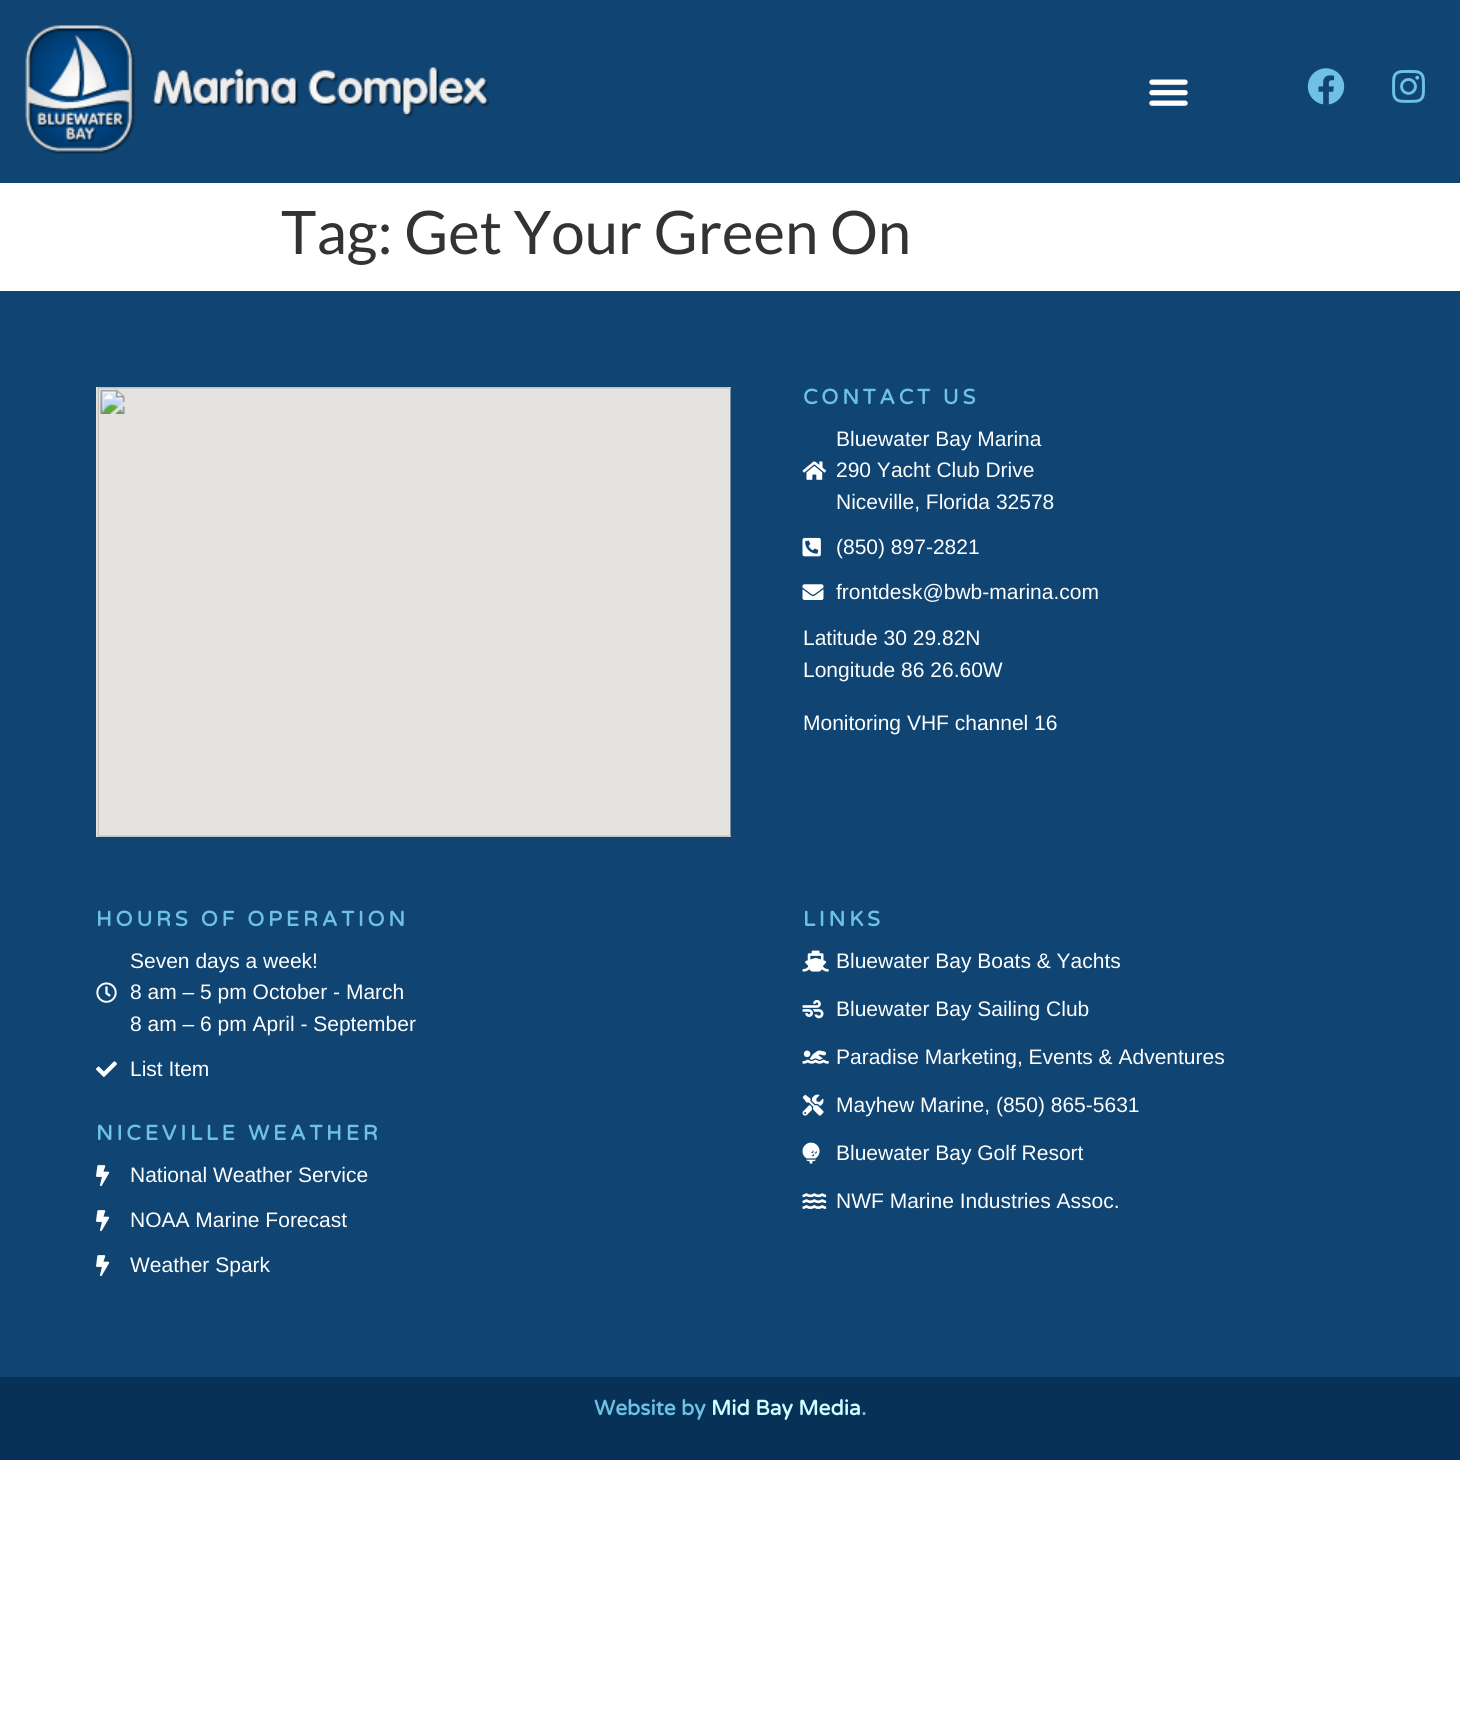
#include <cairo/cairo.h>
#include <math.h>
#include <stddef.h>

static cairo_t *cr;

static void use_color(int r, int g, int b) {
  cairo_set_source_rgb(cr, r / 255.0, g / 255.0, b / 255.0);
}

static void text(double x, double y, const char *s, const char *family, double size, int italic, int bold, int r, int g, int b) {
  cairo_select_font_face(cr, family, italic ? CAIRO_FONT_SLANT_ITALIC : CAIRO_FONT_SLANT_NORMAL,
    bold ? CAIRO_FONT_WEIGHT_BOLD : CAIRO_FONT_WEIGHT_NORMAL);
  cairo_set_font_size(cr, size);
  use_color(r, g, b);
  cairo_move_to(cr, x, y);
  cairo_show_text(cr, s);
}

static void spaced_text(double x, double y, const char *s, double letter, double word) {
  cairo_move_to(cr, x, y);
  while (*s) {
    char ch[5] = {0};
    int n = 0;
    do ch[n++] = *s++; while ((*s & 0xC0) == 0x80);
    cairo_show_text(cr, ch);
    cairo_rel_move_to(cr, letter + word * (*ch == ' '), 0);
  }
}

static void box(double x, double y, double w, double h, int r, int g, int b) {
  use_color(r, g, b);
  cairo_rectangle(cr, x, y, w, h);
  cairo_fill(cr);
}

static void picture(const char *path, double x, double y, double w, double h) {
  cairo_surface_t *image = cairo_image_surface_create_from_png(path);
  cairo_save(cr);
  cairo_set_source_surface(cr, image, x, y);
  cairo_rectangle(cr, x, y, w, h);
  cairo_fill(cr);
  cairo_restore(cr);
  cairo_surface_destroy(image);
}

static void draw(void) {
  use_color(255, 255, 255);
  cairo_paint(cr);
  box(0, 0, 1460, 183, 15, 68, 115);
  picture("img_01.png", 25, 25, 465, 130);
  picture("img_02.png", 1149, 79, 39, 27);
  picture("img_03.png", 1307, 68, 38, 37);
  picture("img_04.png", 1392, 69, 33, 34);
  box(0, 291, 1460, 1086, 15, 68, 115);
  picture("img_05.png", 96, 387, 635, 450);
  picture("img_06.png", 802, 461, 25, 19);
  picture("img_07.png", 802, 537, 19, 20);
  picture("img_08.png", 802, 584, 22, 16);
  picture("img_09.png", 96, 982, 21, 21);
  picture("img_10.png", 96, 1061, 21, 16);
  picture("img_11.png", 96, 1165, 14, 22);
  picture("img_11.png", 96, 1210, 14, 22);
  picture("img_11.png", 96, 1255, 14, 22);
  picture("img_12.png", 802, 950, 27, 22);
  picture("img_13.png", 802, 999, 22, 20);
  picture("img_14.png", 802, 1050, 27, 14);
  picture("img_15.png", 802, 1094, 22, 22);
  picture("img_16.png", 802, 1142, 18, 22);
  picture("img_17.png", 802, 1193, 25, 16);
  box(0, 1377, 1460, 83, 7, 49, 87);
  text(281, 254, "Tag: Get Your Green On", "Lato", 60, 0, 0, 51, 51, 51);
  cairo_select_font_face(cr, "Varela Round", CAIRO_FONT_SLANT_NORMAL, CAIRO_FONT_WEIGHT_BOLD);
  cairo_set_font_size(cr, 21);
  use_color(110, 193, 228);
  spaced_text(803, 404, "CONTACT US", 3.75, 0);
  text(836, 446, "Bluewater Bay Marina", "Liberation Sans", 21, 0, 0, 255, 255, 255);
  text(836, 477, "290 Yacht Club Drive", "Liberation Sans", 21, 0, 0, 255, 255, 255);
  text(836, 509, "Niceville, Florida 32578", "Liberation Sans", 21, 0, 0, 255, 255, 255);
  text(836, 554, "(850) 897-2821", "Liberation Sans", 21, 0, 0, 255, 255, 255);
  text(836, 599, "frontdesk@bwb-marina.com", "Liberation Sans", 21, 0, 0, 255, 255, 255);
  text(803, 645, "Latitude 30 29.82N", "Liberation Sans", 21, 0, 0, 255, 255, 255);
  text(803, 677, "Longitude 86 26.60W", "Liberation Sans", 21, 0, 0, 255, 255, 255);
  text(803, 730, "Monitoring VHF channel 16", "Liberation Sans", 21, 0, 0, 255, 255, 255);
  cairo_select_font_face(cr, "Varela Round", CAIRO_FONT_SLANT_NORMAL, CAIRO_FONT_WEIGHT_BOLD);
  use_color(110, 193, 228);
  spaced_text(96, 926, "HOURS OF OPERATION", 3.75, 0);
  text(130, 968, "Seven days a week!", "Liberation Sans", 21, 0, 0, 255, 255, 255);
  text(130, 999, "8 am – 5 pm October - March", "Liberation Sans", 21, 0, 0, 255, 255, 255);
  text(130, 1031, "8 am – 6 pm April - September", "Liberation Sans", 21, 0, 0, 255, 255, 255);
  text(130, 1076, "List Item", "Liberation Sans", 21, 0, 0, 255, 255, 255);
  cairo_select_font_face(cr, "Varela Round", CAIRO_FONT_SLANT_NORMAL, CAIRO_FONT_WEIGHT_BOLD);
  use_color(110, 193, 228);
  spaced_text(96, 1140, "NICEVILLE WEATHER", 3.75, 0);
  text(130, 1182, "National Weather Service", "Liberation Sans", 21, 0, 0, 255, 255, 255);
  text(130, 1227, "NOAA Marine Forecast", "Liberation Sans", 21, 0, 0, 255, 255, 255);
  text(130, 1272, "Weather Spark", "Liberation Sans", 21, 0, 0, 255, 255, 255);
  cairo_select_font_face(cr, "Varela Round", CAIRO_FONT_SLANT_NORMAL, CAIRO_FONT_WEIGHT_BOLD);
  use_color(110, 193, 228);
  spaced_text(803, 926, "LINKS", 3.75, 0);
  text(836, 968, "Bluewater Bay Boats & Yachts", "Liberation Sans", 21, 0, 0, 255, 255, 255);
  text(836, 1016, "Bluewater Bay Sailing Club", "Liberation Sans", 21, 0, 0, 255, 255, 255);
  text(836, 1064, "Paradise Marketing, Events & Adventures", "Liberation Sans", 21, 0, 0, 255, 255, 255);
  text(836, 1112, "Mayhew Marine, (850) 865-5631", "Liberation Sans", 21, 0, 0, 255, 255, 255);
  text(836, 1160, "Bluewater Bay Golf Resort", "Liberation Sans", 21, 0, 0, 255, 255, 255);
  text(836, 1208, "NWF Marine Industries Assoc.", "Liberation Sans", 21, 0, 0, 255, 255, 255);
  text(594, 1415, "Website by", "Varela Round", 21, 0, 1, 110, 193, 228);
  text(711, 1415, "Mid Bay Media", "Varela Round", 21, 0, 1, 204, 255, 255);
  text(861, 1415, ".", "Varela Round", 21, 0, 1, 110, 193, 228);
}

int main(void) {
  cairo_surface_t *surface = cairo_image_surface_create(CAIRO_FORMAT_RGB24, 1460, 1714);
  cr = cairo_create(surface);
  cairo_font_options_t *options = cairo_font_options_create();
  cairo_font_options_set_hint_metrics(options, CAIRO_HINT_METRICS_OFF);
  cairo_font_options_set_hint_style(options, CAIRO_HINT_STYLE_NONE);
  cairo_set_font_options(cr, options);
  cairo_set_miter_limit(cr, 4);
  draw();
  cairo_surface_write_to_png(surface, "out.png");
  cairo_font_options_destroy(options);
  cairo_destroy(cr);
  cairo_surface_destroy(surface);
  return 0;
}
